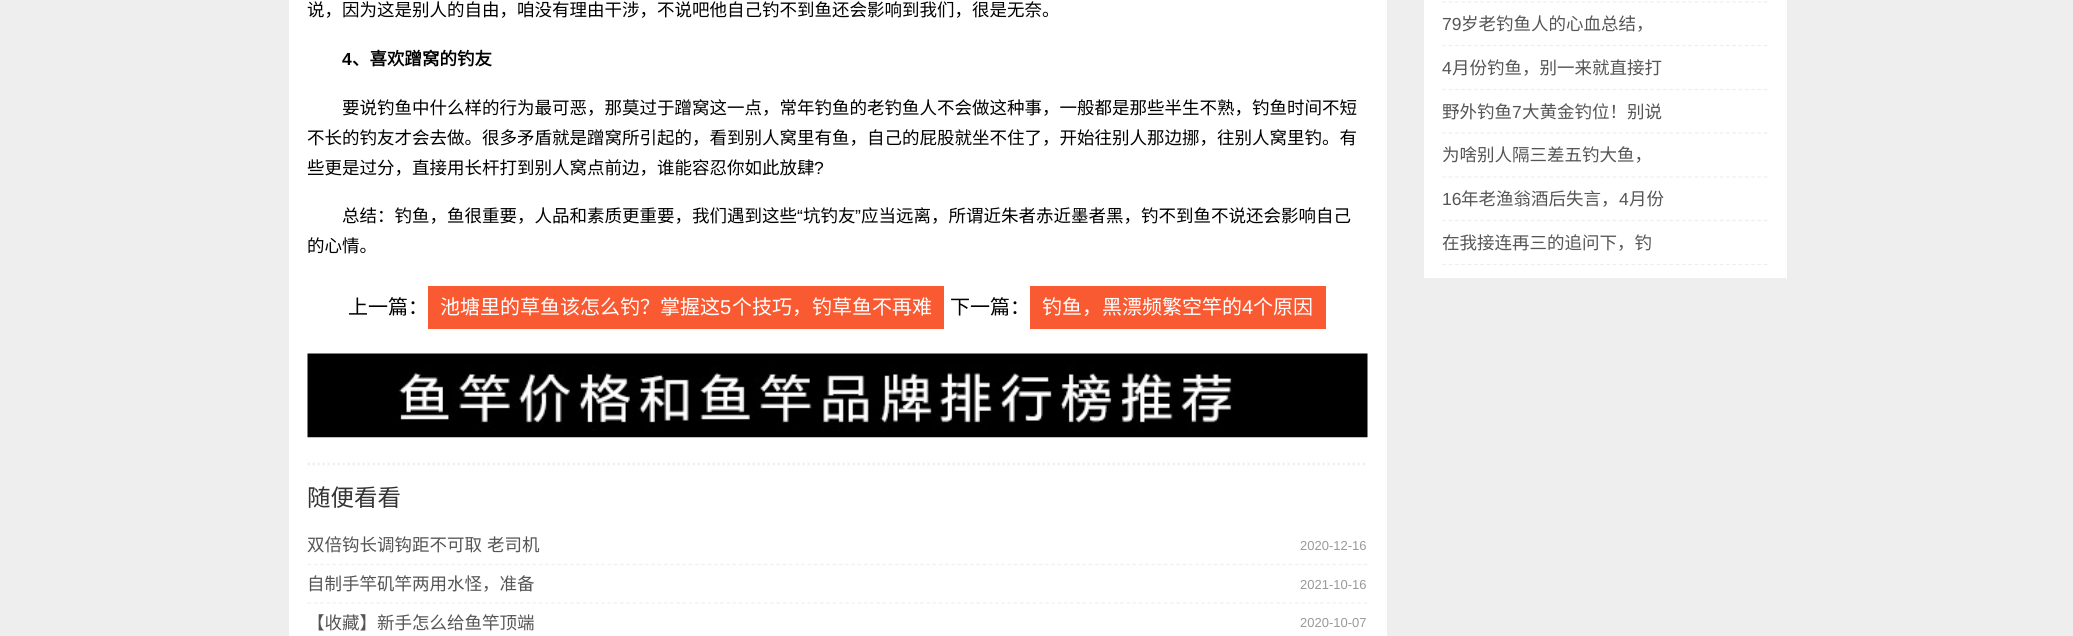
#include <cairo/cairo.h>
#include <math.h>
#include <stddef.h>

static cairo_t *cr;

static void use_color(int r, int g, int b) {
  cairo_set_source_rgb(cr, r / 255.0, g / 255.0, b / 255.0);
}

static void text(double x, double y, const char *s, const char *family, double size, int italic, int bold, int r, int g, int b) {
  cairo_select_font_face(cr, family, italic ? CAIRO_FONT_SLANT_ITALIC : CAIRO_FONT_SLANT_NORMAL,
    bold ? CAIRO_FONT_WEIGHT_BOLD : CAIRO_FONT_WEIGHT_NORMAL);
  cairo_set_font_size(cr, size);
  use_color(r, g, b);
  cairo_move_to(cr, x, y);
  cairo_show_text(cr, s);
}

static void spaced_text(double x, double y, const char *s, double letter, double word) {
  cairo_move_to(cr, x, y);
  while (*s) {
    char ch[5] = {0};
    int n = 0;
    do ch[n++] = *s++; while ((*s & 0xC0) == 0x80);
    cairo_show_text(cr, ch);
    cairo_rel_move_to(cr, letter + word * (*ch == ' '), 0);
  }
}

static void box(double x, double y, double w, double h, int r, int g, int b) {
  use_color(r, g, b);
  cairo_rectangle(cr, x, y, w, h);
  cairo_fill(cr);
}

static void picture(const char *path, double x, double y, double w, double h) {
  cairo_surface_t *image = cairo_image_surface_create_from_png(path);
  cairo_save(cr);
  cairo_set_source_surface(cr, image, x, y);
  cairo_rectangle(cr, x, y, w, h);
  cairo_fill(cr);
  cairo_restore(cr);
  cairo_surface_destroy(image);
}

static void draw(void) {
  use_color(238, 238, 238);
  cairo_paint(cr);
  box(289, 0, 1098, 636, 255, 255, 255);
  box(428, 286, 516, 43, 249, 90, 50);
  box(1030, 286, 296, 43, 249, 90, 50);
  picture("img_01.png", 307, 353, 1061, 85);
  cairo_new_path(cr);
  cairo_move_to(cr, 307.5, 464);
  cairo_line_to(cr, 1367.5, 464);
  use_color(240, 240, 240);
  cairo_set_line_width(cr, 2.5);
  cairo_set_dash(cr, (double[]){2.5, 2.5}, 2, 0);
  cairo_stroke(cr);
  cairo_new_path(cr);
  cairo_move_to(cr, 307.5, 564.5);
  cairo_line_to(cr, 1367.5, 564.5);
  cairo_set_line_width(cr, 1.2);
  cairo_set_dash(cr, (double[]){3.75, 2.5}, 2, 0);
  cairo_stroke(cr);
  cairo_new_path(cr);
  cairo_move_to(cr, 307.5, 603);
  cairo_line_to(cr, 1367.5, 603);
  cairo_stroke(cr);
  box(1424, 0, 363, 279, 255, 255, 255);
  box(1424, 278, 362, 1, 237, 237, 237);
  cairo_new_path(cr);
  cairo_move_to(cr, 1442.5, 2);
  cairo_line_to(cr, 1767.5, 2);
  use_color(238, 238, 238);
  cairo_set_dash(cr, (double[]){3.75, 2.55}, 2, 0);
  cairo_stroke(cr);
  cairo_new_path(cr);
  cairo_move_to(cr, 1442.5, 45.5);
  cairo_line_to(cr, 1767.5, 45.5);
  cairo_stroke(cr);
  cairo_new_path(cr);
  cairo_move_to(cr, 1442.5, 89.5);
  cairo_line_to(cr, 1767.5, 89.5);
  cairo_stroke(cr);
  cairo_new_path(cr);
  cairo_move_to(cr, 1442.5, 133);
  cairo_line_to(cr, 1767.5, 133);
  cairo_stroke(cr);
  cairo_new_path(cr);
  cairo_move_to(cr, 1442.5, 177);
  cairo_line_to(cr, 1767.5, 177);
  cairo_stroke(cr);
  cairo_new_path(cr);
  cairo_move_to(cr, 1442.5, 220.5);
  cairo_line_to(cr, 1767.5, 220.5);
  cairo_stroke(cr);
  cairo_new_path(cr);
  cairo_move_to(cr, 1442.5, 264.5);
  cairo_line_to(cr, 1767.5, 264.5);
  cairo_stroke(cr);
  text(307, 16, "说，因为这是别人的自由，咱没有理由干涉，不说吧他自己钓不到鱼还会影响到我们，很是无奈。", "Noto Sans CJK SC", 17.5, 0, 0, 0, 0, 0);
  text(342, 65, "4", "Liberation Sans", 17.5, 0, 1, 0, 0, 0);
  text(352, 65, "、喜欢蹭窝的钓友", "Noto Sans CJK SC", 17.5, 0, 1, 0, 0, 0);
  text(342, 114, "要说钓鱼中什么样的行为最可恶，那莫过于蹭窝这一点，常年钓鱼的老钓鱼人不会做这种事，一般都是那些半生不熟，钓鱼时间不短", "Noto Sans CJK SC", 17.5, 0, 0, 0, 0, 0);
  text(307, 144, "不长的钓友才会去做。很多矛盾就是蹭窝所引起的，看到别人窝里有鱼，自己的屁股就坐不住了，开始往别人那边挪，往别人窝里钓。有", "Noto Sans CJK SC", 17.5, 0, 0, 0, 0, 0);
  text(307, 174, "些更是过分，直接用长杆打到别人窝点前边，谁能容忍你如此放肆", "Noto Sans CJK SC", 17.5, 0, 0, 0, 0, 0);
  text(814, 174, "?", "Liberation Sans", 17.5, 0, 0, 0, 0, 0);
  text(342, 222, "总结：钓鱼，鱼很重要，人品和素质更重要，我们遇到这些", "Noto Sans CJK SC", 17.5, 0, 0, 0, 0, 0);
  text(797, 222, "“", "Liberation Sans", 17.5, 0, 0, 0, 0, 0);
  text(803, 222, "坑钓友", "Noto Sans CJK SC", 17.5, 0, 0, 0, 0, 0);
  text(855, 222, "”", "Liberation Sans", 17.5, 0, 0, 0, 0, 0);
  text(861, 222, "应当远离，所谓近朱者赤近墨者黑，钓不到鱼不说还会影响自己", "Noto Sans CJK SC", 17.5, 0, 0, 0, 0, 0);
  text(307, 252, "的心情。", "Noto Sans CJK SC", 17.5, 0, 0, 0, 0, 0);
  text(348, 314, "上一篇：", "Noto Sans CJK SC", 20, 0, 0, 0, 0, 0);
  text(440, 314, "池塘里的草鱼该怎么钓？掌握这", "Noto Sans CJK SC", 20, 0, 0, 255, 255, 255);
  text(720, 314, "5", "Liberation Sans", 20, 0, 0, 255, 255, 255);
  text(732, 314, "个技巧，钓草鱼不再难", "Noto Sans CJK SC", 20, 0, 0, 255, 255, 255);
  text(950, 314, "下一篇：", "Noto Sans CJK SC", 20, 0, 0, 0, 0, 0);
  text(1042, 314, "钓鱼，黑漂频繁空竿的", "Noto Sans CJK SC", 20, 0, 0, 255, 255, 255);
  text(1242, 314, "4", "Liberation Sans", 20, 0, 0, 255, 255, 255);
  text(1253, 314, "个原因", "Noto Sans CJK SC", 20, 0, 0, 255, 255, 255);
  text(307, 506, "随便看看", "Noto Sans CJK SC", 23.5, 0, 0, 51, 51, 51);
  cairo_set_font_size(cr, 17.5);
  use_color(85, 85, 85);
  spaced_text(307, 551, "双倍钩长调钩距不可取 老司机", 0, 1);
  text(1300, 550, "2020-12-16", "Liberation Sans", 13, 0, 0, 153, 153, 153);
  text(307, 590, "自制手竿矶竿两用水怪，准备", "Noto Sans CJK SC", 17.5, 0, 0, 85, 85, 85);
  text(1300, 589, "2021-10-16", "Liberation Sans", 13, 0, 0, 153, 153, 153);
  text(307, 629, "【收藏】新手怎么给鱼竿顶端", "Noto Sans CJK SC", 17.5, 0, 0, 85, 85, 85);
  text(1300, 627, "2020-10-07", "Liberation Sans", 13, 0, 0, 153, 153, 153);
  text(1442, 30, "79", "Liberation Sans", 17.5, 0, 0, 85, 85, 85);
  text(1461, 30, "岁老钓鱼人的心血总结，", "Noto Sans CJK SC", 17.5, 0, 0, 85, 85, 85);
  text(1442, 74, "4", "Liberation Sans", 17.5, 0, 0, 85, 85, 85);
  text(1452, 74, "月份钓鱼，别一来就直接打", "Noto Sans CJK SC", 17.5, 0, 0, 85, 85, 85);
  text(1442, 118, "野外钓鱼", "Noto Sans CJK SC", 17.5, 0, 0, 85, 85, 85);
  text(1512, 118, "7", "Liberation Sans", 17.5, 0, 0, 85, 85, 85);
  text(1522, 118, "大黄金钓位！别说", "Noto Sans CJK SC", 17.5, 0, 0, 85, 85, 85);
  text(1442, 161, "为啥别人隔三差五钓大鱼，", "Noto Sans CJK SC", 17.5, 0, 0, 85, 85, 85);
  text(1442, 205, "16", "Liberation Sans", 17.5, 0, 0, 85, 85, 85);
  text(1461, 205, "年老渔翁酒后失言，", "Noto Sans CJK SC", 17.5, 0, 0, 85, 85, 85);
  text(1619, 205, "4", "Liberation Sans", 17.5, 0, 0, 85, 85, 85);
  text(1629, 205, "月份", "Noto Sans CJK SC", 17.5, 0, 0, 85, 85, 85);
  text(1442, 249, "在我接连再三的追问下，钓", "Noto Sans CJK SC", 17.5, 0, 0, 85, 85, 85);
}

int main(void) {
  cairo_surface_t *surface = cairo_image_surface_create(CAIRO_FORMAT_RGB24, 2073, 636);
  cr = cairo_create(surface);
  cairo_font_options_t *options = cairo_font_options_create();
  cairo_font_options_set_hint_metrics(options, CAIRO_HINT_METRICS_OFF);
  cairo_font_options_set_hint_style(options, CAIRO_HINT_STYLE_NONE);
  cairo_set_font_options(cr, options);
  cairo_set_miter_limit(cr, 4);
  draw();
  cairo_surface_write_to_png(surface, "out.png");
  cairo_font_options_destroy(options);
  cairo_destroy(cr);
  cairo_surface_destroy(surface);
  return 0;
}
